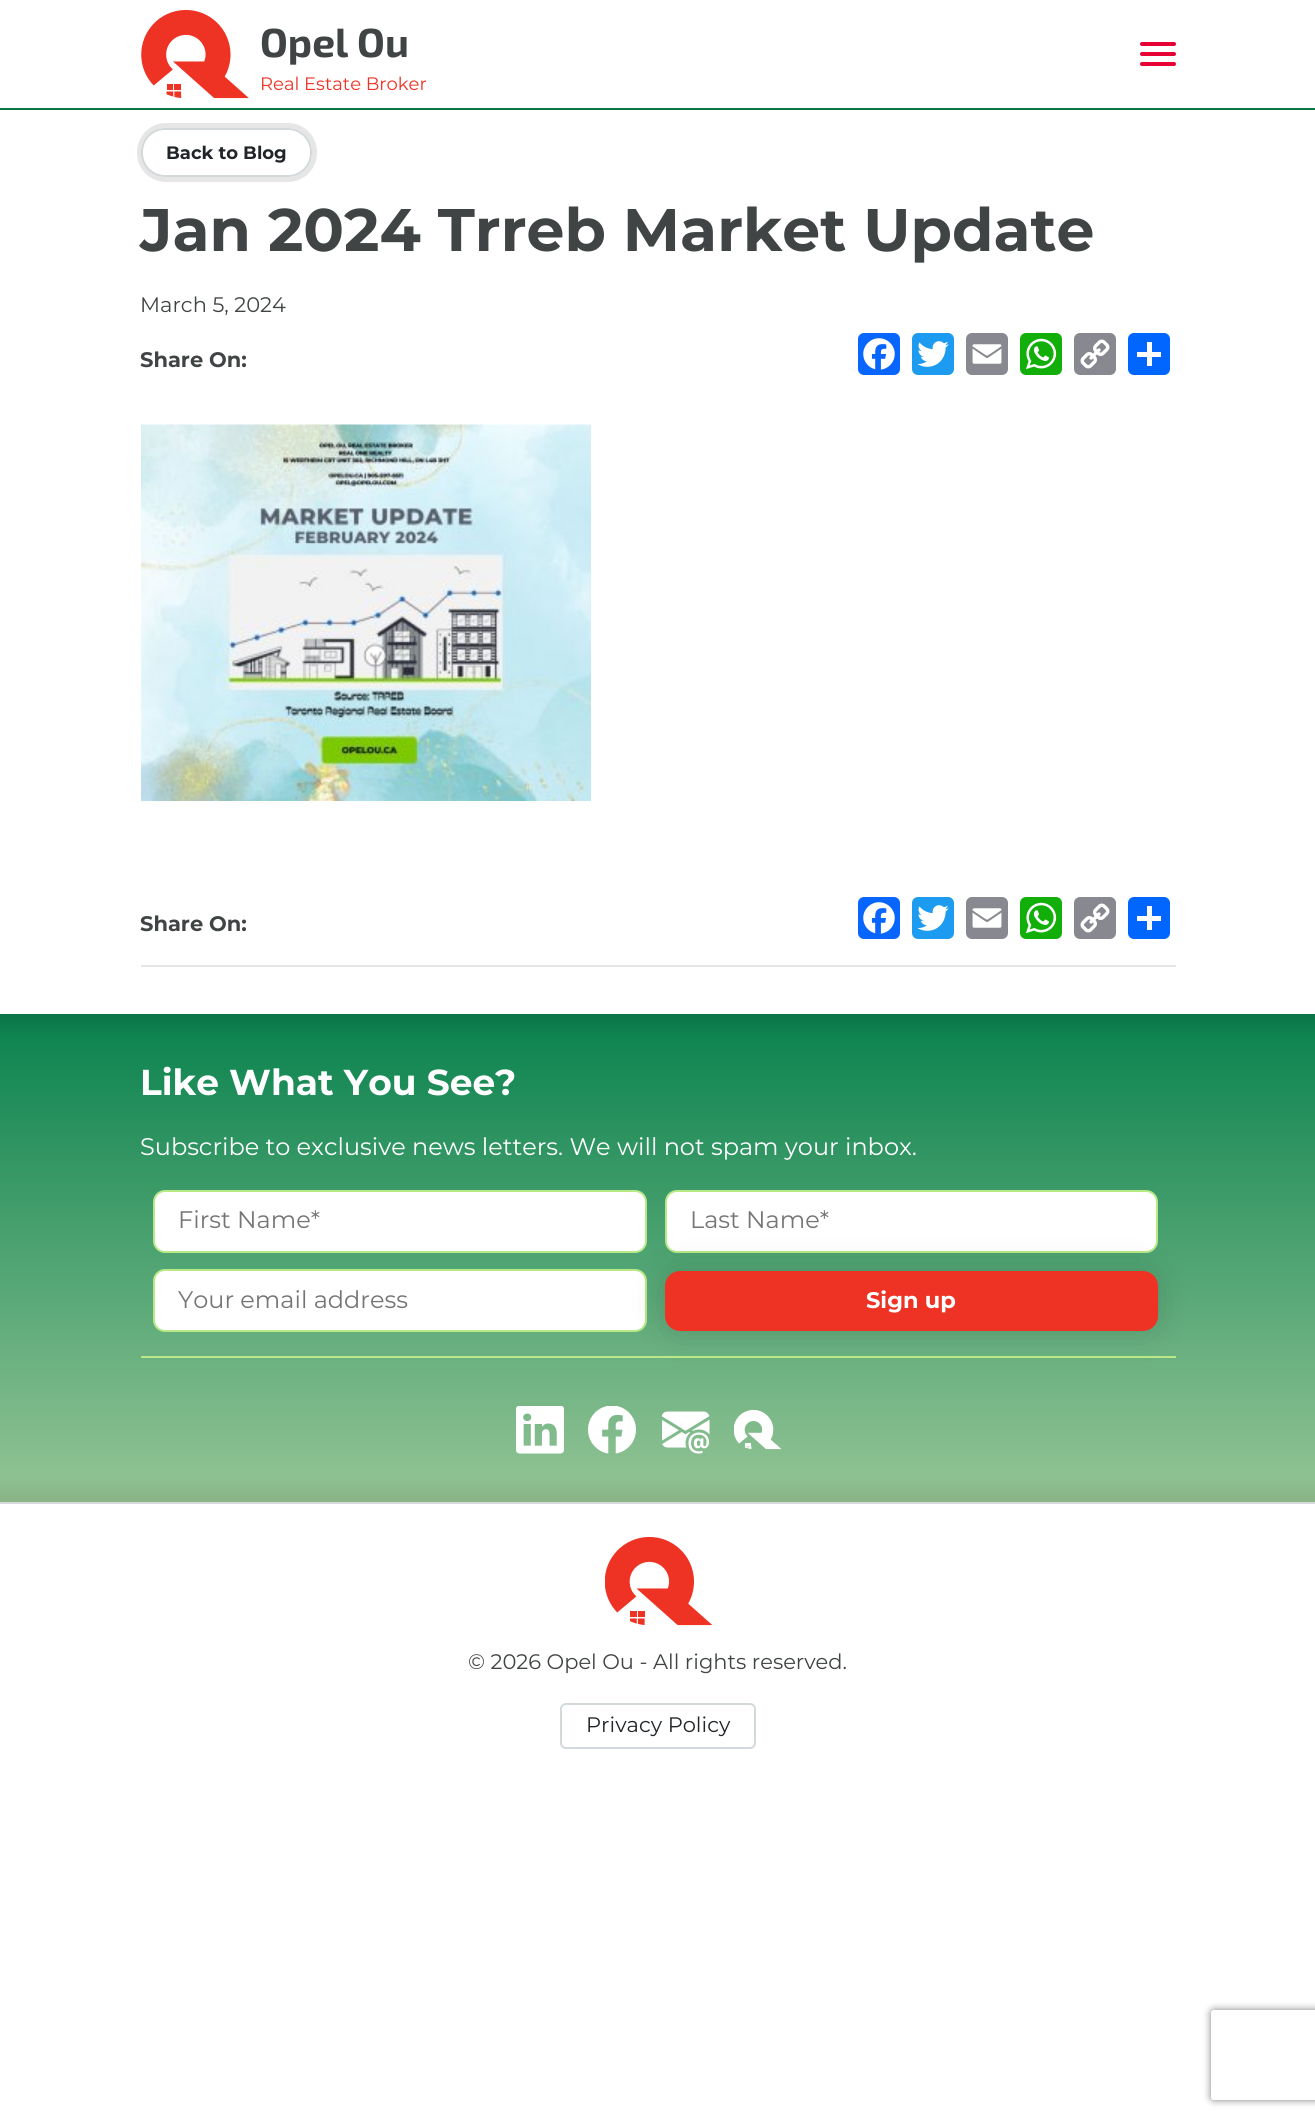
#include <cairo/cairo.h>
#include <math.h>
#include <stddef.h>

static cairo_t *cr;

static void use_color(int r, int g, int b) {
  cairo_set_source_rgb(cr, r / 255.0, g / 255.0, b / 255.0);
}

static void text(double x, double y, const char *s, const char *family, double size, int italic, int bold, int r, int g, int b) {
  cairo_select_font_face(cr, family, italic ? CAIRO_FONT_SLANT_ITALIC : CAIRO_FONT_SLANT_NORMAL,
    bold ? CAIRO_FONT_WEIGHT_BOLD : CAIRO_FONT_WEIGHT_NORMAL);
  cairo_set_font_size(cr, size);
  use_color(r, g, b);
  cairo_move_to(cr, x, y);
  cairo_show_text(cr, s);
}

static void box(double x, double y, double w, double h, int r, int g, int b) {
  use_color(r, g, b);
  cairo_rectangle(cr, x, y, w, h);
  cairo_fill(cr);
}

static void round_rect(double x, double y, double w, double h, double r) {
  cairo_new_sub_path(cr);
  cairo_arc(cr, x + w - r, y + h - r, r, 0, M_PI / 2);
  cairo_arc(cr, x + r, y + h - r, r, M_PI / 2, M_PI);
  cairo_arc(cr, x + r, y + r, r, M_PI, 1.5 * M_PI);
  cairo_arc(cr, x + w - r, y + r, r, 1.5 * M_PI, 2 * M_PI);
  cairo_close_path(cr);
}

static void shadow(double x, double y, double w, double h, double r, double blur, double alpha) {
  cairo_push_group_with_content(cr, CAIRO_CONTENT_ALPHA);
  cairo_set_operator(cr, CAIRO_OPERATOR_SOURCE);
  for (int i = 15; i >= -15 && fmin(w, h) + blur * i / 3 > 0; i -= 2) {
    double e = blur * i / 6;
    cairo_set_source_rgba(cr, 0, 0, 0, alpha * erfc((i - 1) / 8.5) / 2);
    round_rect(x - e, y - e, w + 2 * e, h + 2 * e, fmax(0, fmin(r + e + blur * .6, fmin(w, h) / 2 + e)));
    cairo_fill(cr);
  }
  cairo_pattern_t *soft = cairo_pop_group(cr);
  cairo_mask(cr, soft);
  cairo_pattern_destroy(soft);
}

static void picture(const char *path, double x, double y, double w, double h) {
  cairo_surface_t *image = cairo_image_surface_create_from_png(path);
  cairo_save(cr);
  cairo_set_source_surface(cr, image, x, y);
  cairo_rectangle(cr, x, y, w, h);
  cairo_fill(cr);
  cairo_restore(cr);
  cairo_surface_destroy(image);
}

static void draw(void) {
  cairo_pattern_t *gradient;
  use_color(255, 255, 255);
  cairo_paint(cr);
  box(0, 108, 1315, 2, 10, 117, 71);
  picture("img_01.png", 141, 10, 108, 89);
  picture("img_02.png", 1140, 42, 36, 24);
  round_rect(139.5, 125.5, 175, 54, 26.5);
  use_color(230, 230, 230);
  cairo_set_line_width(cr, 5);
  cairo_stroke(cr);
  round_rect(142, 129, 169, 47, 23);
  use_color(211, 217, 219);
  cairo_set_line_width(cr, 2);
  cairo_stroke(cr);
  use_color(8, 102, 255);
  round_rect(858, 333, 42, 42, 6);
  cairo_fill(cr);
  picture("img_03.png", 863, 338, 32, 32);
  use_color(29, 155, 240);
  round_rect(912, 333, 42, 42, 6);
  cairo_fill(cr);
  picture("img_04.png", 917, 341, 32, 26);
  use_color(136, 137, 144);
  round_rect(966, 333, 42, 42, 6);
  cairo_fill(cr);
  picture("img_05.png", 972, 344, 30, 20);
  use_color(18, 175, 10);
  round_rect(1020, 333, 42, 42, 6);
  cairo_fill(cr);
  picture("img_06.png", 1026, 338, 31, 32);
  use_color(136, 137, 144);
  round_rect(1074, 333, 42, 42, 6);
  cairo_fill(cr);
  picture("img_07.png", 1080, 339, 30, 30);
  use_color(1, 102, 255);
  round_rect(1128, 333, 42, 42, 6);
  cairo_fill(cr);
  box(1147, 342, 5, 24, 255, 255, 255);
  box(1137, 352, 24, 5, 255, 255, 255);
  picture("img_08.png", 141, 424, 450, 377);
  use_color(8, 102, 255);
  round_rect(858, 897, 42, 42, 6);
  cairo_fill(cr);
  picture("img_03.png", 863, 902, 32, 32);
  use_color(29, 155, 240);
  round_rect(912, 897, 42, 42, 6);
  cairo_fill(cr);
  picture("img_04.png", 917, 905, 32, 26);
  use_color(136, 137, 144);
  round_rect(966, 897, 42, 42, 6);
  cairo_fill(cr);
  picture("img_05.png", 972, 908, 30, 20);
  use_color(18, 175, 10);
  round_rect(1020, 897, 42, 42, 6);
  cairo_fill(cr);
  picture("img_06.png", 1026, 902, 31, 32);
  use_color(136, 137, 144);
  round_rect(1074, 897, 42, 42, 6);
  cairo_fill(cr);
  picture("img_07.png", 1080, 903, 30, 30);
  use_color(1, 102, 255);
  round_rect(1128, 897, 42, 42, 6);
  cairo_fill(cr);
  box(1147, 906, 5, 24, 255, 255, 255);
  box(1137, 916, 24, 5, 255, 255, 255);
  box(141, 965, 1035, 2, 231, 230, 230);
  gradient = cairo_pattern_create_linear(658, 1014, 658, 1502);
  cairo_pattern_add_color_stop_rgba(gradient, 0, 0.039, 0.455, 0.278, 1);
  cairo_pattern_add_color_stop_rgba(gradient, 0.05, 0.063, 0.525, 0.322, 1);
  cairo_pattern_add_color_stop_rgba(gradient, 0.95, 0.557, 0.757, 0.573, 1);
  cairo_pattern_add_color_stop_rgba(gradient, 1, 0.533, 0.702, 0.525, 1);
  cairo_set_source(cr, gradient);
  cairo_pattern_destroy(gradient);
  cairo_rectangle(cr, 0, 1014, 1315, 488);
  cairo_fill(cr);
  use_color(255, 255, 255);
  round_rect(154, 1191, 492, 61, 11);
  cairo_fill_preserve(cr);
  use_color(184, 233, 134);
  cairo_stroke(cr);
  use_color(255, 255, 255);
  round_rect(666, 1191, 491, 61, 11);
  cairo_fill_preserve(cr);
  use_color(184, 233, 134);
  cairo_stroke(cr);
  use_color(255, 255, 255);
  round_rect(154, 1270, 492, 61, 11);
  cairo_fill_preserve(cr);
  use_color(184, 233, 134);
  cairo_stroke(cr);
  use_color(0, 0, 0);
  shadow(665, 1271, 493, 60, 15, 18, 0.14);
  use_color(238, 50, 35);
  round_rect(666, 1272, 491, 58, 14);
  cairo_fill_preserve(cr);
  cairo_stroke(cr);
  box(141, 1356, 1035, 2, 184, 233, 134);
  picture("img_09.png", 516, 1406, 48, 48);
  picture("img_10.png", 588, 1406, 48, 48);
  picture("img_11.png", 662, 1411, 48, 43);
  picture("img_12.png", 734, 1409, 48, 41);
  box(0, 1502, 1315, 2, 213, 217, 218);
  picture("img_13.png", 605, 1536, 108, 90);
  round_rect(561, 1704, 194, 44, 5);
  use_color(211, 217, 219);
  cairo_stroke(cr);
  cairo_save(cr);
  cairo_set_fill_rule(cr, CAIRO_FILL_RULE_EVEN_ODD);
  cairo_new_path(cr);
  cairo_move_to(cr, 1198, 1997);
  cairo_line_to(cr, 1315, 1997);
  cairo_line_to(cr, 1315, 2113);
  cairo_line_to(cr, 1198, 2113);
  cairo_close_path(cr);
  cairo_move_to(cr, 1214, 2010);
  cairo_line_to(cr, 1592, 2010);
  cairo_curve_to(cr, 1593.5, 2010, 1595, 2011.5, 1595, 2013);
  cairo_line_to(cr, 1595, 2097);
  cairo_curve_to(cr, 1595, 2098.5, 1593.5, 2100, 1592, 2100);
  cairo_line_to(cr, 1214, 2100);
  cairo_curve_to(cr, 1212.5, 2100, 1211, 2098.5, 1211, 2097);
  cairo_line_to(cr, 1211, 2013);
  cairo_curve_to(cr, 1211, 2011.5, 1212.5, 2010, 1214, 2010);
  cairo_close_path(cr);
  cairo_clip(cr);
  use_color(128, 128, 128);
  shadow(1211, 2010, 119, 90, 3, 4, 1);
  cairo_restore(cr);
  text(260, 57, "Opel Ou", "Exo 2", 40.5, 0, 1, 65, 68, 69);
  text(260, 90, "Real Estate Broker", "Montserrat", 18, 0, 0, 238, 50, 35);
  text(166, 159, "Back to Blog", "Montserrat", 18, 0, 1, 33, 37, 41);
  text(140, 251, "Jan 2024 Trreb Market Update", "Montserrat", 60, 0, 1, 65, 68, 69);
  text(140, 312, "March 5, 2024", "Montserrat", 21, 0, 0, 65, 68, 69);
  text(140, 367, "Share On:", "Montserrat", 21, 0, 1, 65, 68, 69);
  text(140, 931, "Share On:", "Montserrat", 21, 0, 1, 65, 68, 69);
  text(140, 1095, "Like What You See?", "Montserrat", 36, 0, 1, 255, 255, 255);
  text(140, 1155, "Subscribe to exclusive news letters. We will not spam your inbox.", "Montserrat", 24, 0, 0, 255, 255, 255);
  text(178, 1228, "First Name*", "Montserrat", 24, 0, 0, 117, 117, 117);
  text(690, 1228, "Last Name*", "Montserrat", 24, 0, 0, 117, 117, 117);
  text(178, 1308, "Your email address", "Montserrat", 24, 0, 0, 117, 117, 117);
  text(866, 1308, "Sign up", "Montserrat", 22.5, 0, 1, 255, 255, 255);
  text(468, 1669, "© 2026 Opel Ou - All rights reserved.", "Montserrat", 21, 0, 0, 65, 68, 69);
  text(586, 1732, "Privacy Policy", "Montserrat", 21, 0, 0, 33, 37, 41);
}

int main(void) {
  cairo_surface_t *surface = cairo_image_surface_create(CAIRO_FORMAT_RGB24, 1315, 2121);
  cr = cairo_create(surface);
  cairo_font_options_t *options = cairo_font_options_create();
  cairo_font_options_set_hint_metrics(options, CAIRO_HINT_METRICS_OFF);
  cairo_font_options_set_hint_style(options, CAIRO_HINT_STYLE_NONE);
  cairo_set_font_options(cr, options);
  cairo_set_miter_limit(cr, 4);
  draw();
  cairo_surface_write_to_png(surface, "out.png");
  cairo_font_options_destroy(options);
  cairo_destroy(cr);
  cairo_surface_destroy(surface);
  return 0;
}
